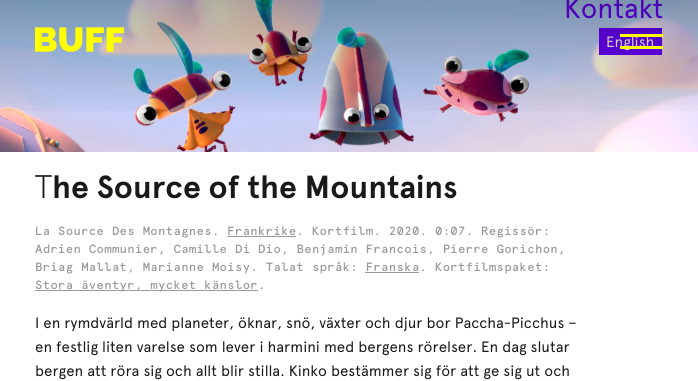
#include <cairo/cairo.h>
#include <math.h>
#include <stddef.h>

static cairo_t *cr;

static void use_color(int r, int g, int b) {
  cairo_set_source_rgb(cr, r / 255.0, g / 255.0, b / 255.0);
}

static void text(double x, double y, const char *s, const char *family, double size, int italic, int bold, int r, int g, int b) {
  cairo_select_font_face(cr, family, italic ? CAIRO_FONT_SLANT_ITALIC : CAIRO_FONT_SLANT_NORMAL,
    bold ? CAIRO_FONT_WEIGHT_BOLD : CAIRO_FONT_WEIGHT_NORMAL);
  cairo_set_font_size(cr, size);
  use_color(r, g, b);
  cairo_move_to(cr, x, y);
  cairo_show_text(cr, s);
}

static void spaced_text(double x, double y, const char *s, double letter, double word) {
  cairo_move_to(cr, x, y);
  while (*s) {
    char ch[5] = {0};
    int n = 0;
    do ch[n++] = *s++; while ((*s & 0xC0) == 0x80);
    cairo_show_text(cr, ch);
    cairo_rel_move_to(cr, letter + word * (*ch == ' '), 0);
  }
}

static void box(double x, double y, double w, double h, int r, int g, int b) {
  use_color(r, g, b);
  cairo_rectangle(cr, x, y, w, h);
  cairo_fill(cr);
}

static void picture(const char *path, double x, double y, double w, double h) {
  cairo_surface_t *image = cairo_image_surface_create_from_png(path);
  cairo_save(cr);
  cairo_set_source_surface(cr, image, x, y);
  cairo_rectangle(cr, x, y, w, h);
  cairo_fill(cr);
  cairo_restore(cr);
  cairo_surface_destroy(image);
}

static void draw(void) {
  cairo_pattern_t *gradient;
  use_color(255, 255, 255);
  cairo_paint(cr);
  picture("img_02.png", 0, 0, 698, 152);
  box(599, 28, 63, 27, 107, 0, 255);
  box(227, 236, 69, 1, 154, 154, 154);
  box(365, 272, 54, 1, 154, 154, 154);
  box(35, 290, 223, 1, 154, 154, 154);
  text(564, 18, "Kontakt", "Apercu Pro", 28, 0, 0, 107, 0, 255);
  text(606, 47, "English", "Apercu Pro", 15, 0, 0, 255, 255, 237);
  gradient = cairo_pattern_create_linear(349, 120, 349, 0);
  cairo_pattern_add_color_stop_rgba(gradient, 0, 0, 0, 0, 0);
  cairo_pattern_add_color_stop_rgba(gradient, 1, 0, 0, 0, 0.3);
  cairo_set_source(cr, gradient);
  cairo_pattern_destroy(gradient);
  cairo_rectangle(cr, 0, 0, 698, 111);
  cairo_fill(cr);
  box(620, 34, 43, 3, 255, 255, 0);
  box(620, 46, 43, 3, 255, 255, 0);
  picture("img_01.png", 35, 27, 90, 25);
  text(35, 198, "T", "Noto Sans Light", 32, 0, 0, 25, 25, 25);
  text(52, 198, "he Source of the Mountains", "Apercu Pro", 32, 0, 1, 25, 25, 25);
  cairo_select_font_face(cr, "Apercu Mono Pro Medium", CAIRO_FONT_SLANT_NORMAL, CAIRO_FONT_WEIGHT_NORMAL);
  cairo_set_font_size(cr, 12);
  use_color(154, 154, 154);
  spaced_text(35, 235, "La Source Des Montagnes. Frankrike. Kortfilm. 2020. 0:07. Regissör:", 0.25, 0);
  spaced_text(35, 253, "Adrien Communier, Camille Di Dio, Benjamin Francois, Pierre Gorichon,", 0.25, 0);
  spaced_text(35, 271, "Briag Mallat, Marianne Moisy. Talat språk: Franska. Kortfilmspaket:", 0.25, 0);
  spaced_text(35, 289, "Stora äventyr, mycket känslor.", 0.25, 0);
  text(35, 328, "I en rymdvärld med planeter, öknar, snö, växter och djur bor Paccha-Picchus –", "Apercu Pro", 15, 0, 0, 25, 25, 25);
  text(35, 352, "en festlig liten varelse som lever i harmini med bergens rörelser. En dag slutar", "Apercu Pro", 15, 0, 0, 25, 25, 25);
  text(35, 376, "bergen att röra sig och allt blir stilla. Kinko bestämmer sig för att ge sig ut och", "Apercu Pro", 15, 0, 0, 25, 25, 25);
}

int main(void) {
  cairo_surface_t *surface = cairo_image_surface_create(CAIRO_FORMAT_RGB24, 698, 381);
  cr = cairo_create(surface);
  cairo_font_options_t *options = cairo_font_options_create();
  cairo_font_options_set_hint_metrics(options, CAIRO_HINT_METRICS_OFF);
  cairo_font_options_set_hint_style(options, CAIRO_HINT_STYLE_NONE);
  cairo_set_font_options(cr, options);
  cairo_set_miter_limit(cr, 4);
  draw();
  cairo_surface_write_to_png(surface, "out.png");
  cairo_font_options_destroy(options);
  cairo_destroy(cr);
  cairo_surface_destroy(surface);
  return 0;
}
